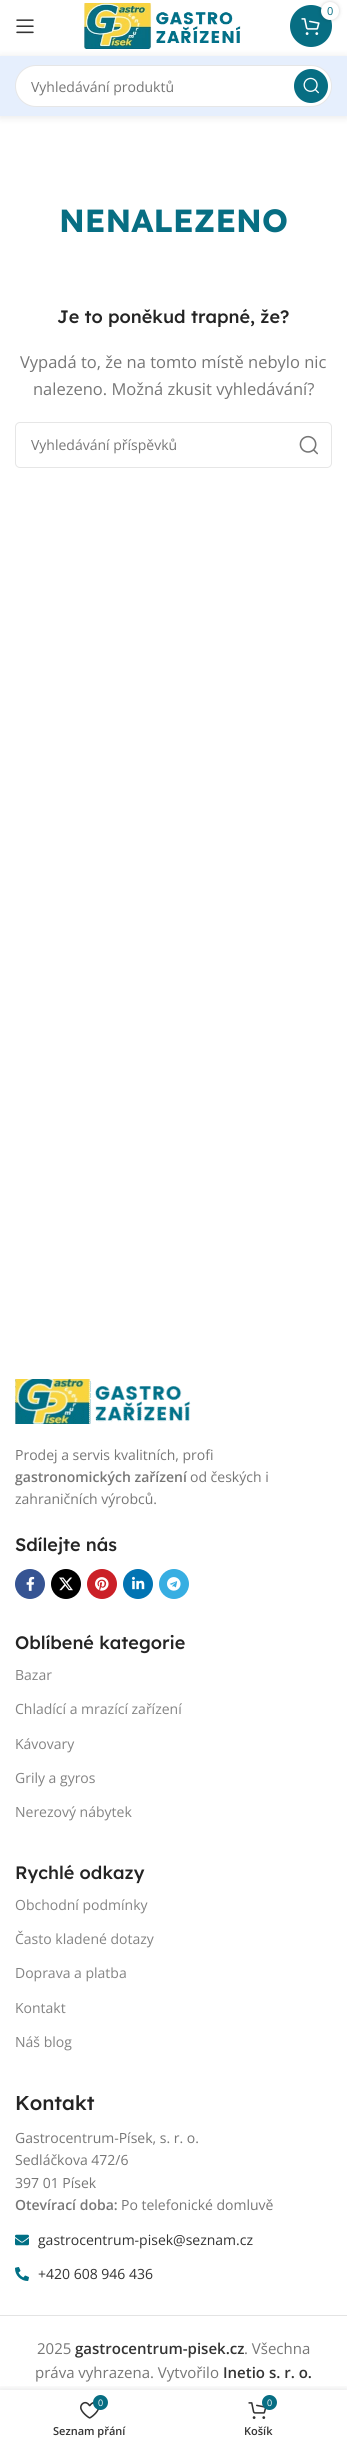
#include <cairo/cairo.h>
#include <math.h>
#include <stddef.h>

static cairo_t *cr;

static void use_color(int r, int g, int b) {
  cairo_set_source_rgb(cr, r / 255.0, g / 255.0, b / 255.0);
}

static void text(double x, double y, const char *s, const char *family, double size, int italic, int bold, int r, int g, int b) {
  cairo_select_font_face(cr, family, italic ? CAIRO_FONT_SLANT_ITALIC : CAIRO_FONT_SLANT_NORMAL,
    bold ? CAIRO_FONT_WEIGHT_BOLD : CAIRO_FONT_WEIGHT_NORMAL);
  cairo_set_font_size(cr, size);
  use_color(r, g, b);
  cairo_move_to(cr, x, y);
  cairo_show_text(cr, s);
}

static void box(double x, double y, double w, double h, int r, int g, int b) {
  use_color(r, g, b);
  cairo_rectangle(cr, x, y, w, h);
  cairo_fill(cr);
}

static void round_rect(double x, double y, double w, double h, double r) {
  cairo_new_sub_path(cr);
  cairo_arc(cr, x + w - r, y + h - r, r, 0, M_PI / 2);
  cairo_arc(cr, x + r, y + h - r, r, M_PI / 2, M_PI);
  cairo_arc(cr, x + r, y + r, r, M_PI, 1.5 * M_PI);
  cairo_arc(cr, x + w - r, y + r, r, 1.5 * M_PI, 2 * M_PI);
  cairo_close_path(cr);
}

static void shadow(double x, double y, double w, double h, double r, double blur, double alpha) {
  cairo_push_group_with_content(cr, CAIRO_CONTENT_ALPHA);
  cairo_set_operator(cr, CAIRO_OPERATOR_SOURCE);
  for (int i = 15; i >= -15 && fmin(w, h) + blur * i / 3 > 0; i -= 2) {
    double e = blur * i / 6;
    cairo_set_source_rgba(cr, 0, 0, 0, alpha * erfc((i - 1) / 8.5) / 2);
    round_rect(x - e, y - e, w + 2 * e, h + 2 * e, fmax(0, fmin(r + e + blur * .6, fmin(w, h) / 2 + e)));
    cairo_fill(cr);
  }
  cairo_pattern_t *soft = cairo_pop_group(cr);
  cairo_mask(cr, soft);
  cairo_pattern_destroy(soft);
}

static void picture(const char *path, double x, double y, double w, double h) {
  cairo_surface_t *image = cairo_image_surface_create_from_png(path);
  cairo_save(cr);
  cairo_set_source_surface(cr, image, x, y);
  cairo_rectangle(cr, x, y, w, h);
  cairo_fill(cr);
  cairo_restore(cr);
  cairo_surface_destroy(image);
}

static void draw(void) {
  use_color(255, 255, 255);
  cairo_paint(cr);
  use_color(0, 0, 0);
  shadow(0, 57, 347, 60, 0, 4, 0.1);
  picture("img_01.png", 84, 3, 157, 46);
  use_color(7, 110, 131);
  cairo_arc(cr, 311, 26, 21, 0, 2 * M_PI);
  cairo_fill(cr);
  picture("img_02.png", 301, 18, 19, 17);
  use_color(0, 0, 0);
  shadow(321, 2, 18, 18, 9, 2, 0.17);
  use_color(255, 255, 255);
  cairo_arc(cr, 330, 11, 9, 0, 2 * M_PI);
  cairo_fill(cr);
  picture("img_03.png", 16, 19, 18, 15);
  box(0, 56, 347, 60, 230, 239, 253);
  use_color(255, 255, 255);
  round_rect(15, 65, 317, 42, 21);
  cairo_fill(cr);
  round_rect(15.5, 65.5, 316, 41, 20.5);
  cairo_set_source_rgba(cr, 0, 0, 0, 0.1);
  cairo_set_line_width(cr, 1);
  cairo_stroke(cr);
  use_color(7, 110, 131);
  cairo_arc(cr, 311, 86, 17, 0, 2 * M_PI);
  cairo_fill(cr);
  picture("img_04.png", 303, 77, 16, 17);
  round_rect(15.5, 422.5, 316, 45, 4.5);
  use_color(230, 230, 230);
  cairo_stroke(cr);
  picture("img_05.png", 299, 435, 19, 20);
  picture("img_06.png", 15, 1379, 176, 45);
  use_color(54, 84, 147);
  cairo_arc(cr, 30, 1584, 15, 0, 2 * M_PI);
  cairo_fill(cr);
  picture("img_07.png", 26, 1576, 9, 15);
  use_color(0, 0, 0);
  cairo_arc(cr, 66, 1584, 15, 0, 2 * M_PI);
  cairo_fill(cr);
  picture("img_08.png", 59, 1577, 14, 14);
  use_color(203, 32, 39);
  cairo_arc(cr, 102, 1584, 15, 0, 2 * M_PI);
  cairo_fill(cr);
  picture("img_09.png", 95, 1577, 14, 14);
  use_color(2, 116, 179);
  cairo_arc(cr, 138, 1584, 15, 0, 2 * M_PI);
  cairo_fill(cr);
  picture("img_10.png", 132, 1576, 13, 14);
  use_color(55, 174, 226);
  cairo_arc(cr, 174, 1584, 15, 0, 2 * M_PI);
  cairo_fill(cr);
  picture("img_11.png", 167, 1577, 14, 14);
  picture("img_12.png", 15, 2234, 14, 12);
  picture("img_13.png", 15, 2267, 14, 14);
  box(0, 2315, 347, 1, 228, 228, 228);
  cairo_save(cr);
  cairo_rectangle(cr, 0, 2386, 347, 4);
  cairo_clip(cr);
  use_color(0, 0, 0);
  shadow(0, 2390, 347, 55, 0, 4.5, 0.12);
  cairo_restore(cr);
  picture("img_14.png", 80, 2401, 20, 18);
  use_color(7, 110, 131);
  cairo_arc(cr, 100.5, 2402.5, 7.5, 0, 2 * M_PI);
  cairo_fill(cr);
  picture("img_15.png", 248, 2402, 19, 17);
  cairo_arc(cr, 269.5, 2402.5, 7.5, 0, 2 * M_PI);
  cairo_fill(cr);
  text(327, 15, "0", "Open Sans", 11, 0, 0, 7, 110, 131);
  text(31, 92, "Vyhledávání produktů", "Open Sans", 14, 0, 0, 118, 118, 118);
  text(59, 232, "NENALEZENO", "Lexend Deca", 32, 0, 1, 7, 110, 131);
  text(57, 323, "Je to poněkud trapné, že?", "Lexend Deca Medium", 18, 0, 0, 36, 36, 36);
  text(20, 368, "Vypadá to, že na tomto místě nebylo nic", "Open Sans", 16.5, 0, 0, 118, 118, 118);
  text(33, 395, "nalezeno. Možná zkusit vyhledávání?", "Open Sans", 16.5, 0, 0, 118, 118, 118);
  text(31, 450, "Vyhledávání příspěvků", "Open Sans", 14, 0, 0, 118, 118, 118);
  text(15, 1460, "Prodej a servis kvalitních, profi", "Open Sans", 14, 0, 0, 118, 118, 118);
  text(15, 1482, "gastronomických zařízení", "Open Sans SemiBold", 14, 0, 0, 118, 118, 118);
  text(190, 1482, "od českých i", "Open Sans", 14, 0, 0, 118, 118, 118);
  text(15, 1504, "zahraničních výrobců.", "Open Sans", 14, 0, 0, 118, 118, 118);
  text(15, 1551, "Sdílejte nás", "Lexend Deca Medium", 18, 0, 0, 36, 36, 36);
  text(15, 1649, "Oblíbené kategorie", "Lexend Deca Medium", 18, 0, 0, 36, 36, 36);
  text(15, 1680, "Bazar", "Open Sans", 14, 0, 0, 131, 131, 131);
  text(15, 1714, "Chladící a mrazící zařízení", "Open Sans", 14, 0, 0, 131, 131, 131);
  text(15, 1749, "Kávovary", "Open Sans", 14, 0, 0, 131, 131, 131);
  text(15, 1783, "Grily a gyros", "Open Sans", 14, 0, 0, 131, 131, 131);
  text(15, 1817, "Nerezový nábytek", "Open Sans", 14, 0, 0, 131, 131, 131);
  text(15, 1879, "Rychlé odkazy", "Lexend Deca Medium", 18, 0, 0, 36, 36, 36);
  text(15, 1910, "Obchodní podmínky", "Open Sans", 14, 0, 0, 131, 131, 131);
  text(15, 1944, "Často kladené dotazy", "Open Sans", 14, 0, 0, 131, 131, 131);
  text(15, 1978, "Doprava a platba", "Open Sans", 14, 0, 0, 131, 131, 131);
  text(15, 2013, "Kontakt", "Open Sans", 14, 0, 0, 131, 131, 131);
  text(15, 2047, "Náš blog", "Open Sans", 14, 0, 0, 131, 131, 131);
  text(15, 2110, "Kontakt", "Lexend Deca Medium", 20, 0, 0, 36, 36, 36);
  text(15, 2143, "Gastrocentrum-Písek, s. r. o.", "Open Sans", 14, 0, 0, 118, 118, 118);
  text(15, 2165, "Sedláčkova 472/6", "Open Sans", 14, 0, 0, 118, 118, 118);
  text(15, 2188, "397 01 Písek", "Open Sans", 14, 0, 0, 118, 118, 118);
  text(15, 2210, "Otevírací doba:", "Open Sans SemiBold", 14, 0, 0, 118, 118, 118);
  text(121, 2210, "Po telefonické domluvě", "Open Sans", 14, 0, 0, 118, 118, 118);
  text(38, 2245, "gastrocentrum-pisek@seznam.cz", "Open Sans", 14, 0, 0, 51, 51, 51);
  text(38, 2279, "+420 608 946 436", "Open Sans", 14, 0, 0, 51, 51, 51);
  text(37, 2354, "2025", "Open Sans", 15, 0, 0, 118, 118, 118);
  text(75, 2354, "gastrocentrum-pisek.cz", "Open Sans SemiBold", 15, 0, 0, 51, 51, 51);
  text(244, 2354, ". Všechna", "Open Sans", 15, 0, 0, 118, 118, 118);
  text(35, 2378, "práva vyhrazena. Vytvořilo", "Open Sans", 15, 0, 0, 118, 118, 118);
  text(223, 2378, "Inetio s. r. o.", "Open Sans SemiBold", 15, 0, 0, 51, 51, 51);
  text(98, 2406, "0", "Open Sans", 9, 0, 0, 255, 255, 255);
  text(53, 2435, "Seznam přání", "Open Sans SemiBold", 11, 0, 0, 51, 51, 51);
  text(267, 2406, "0", "Open Sans", 9, 0, 0, 255, 255, 255);
  text(244, 2435, "Košík", "Open Sans SemiBold", 11, 0, 0, 51, 51, 51);
}

int main(void) {
  cairo_surface_t *surface = cairo_image_surface_create(CAIRO_FORMAT_RGB24, 347, 2445);
  cr = cairo_create(surface);
  cairo_font_options_t *options = cairo_font_options_create();
  cairo_font_options_set_hint_metrics(options, CAIRO_HINT_METRICS_OFF);
  cairo_font_options_set_hint_style(options, CAIRO_HINT_STYLE_NONE);
  cairo_set_font_options(cr, options);
  cairo_set_miter_limit(cr, 4);
  draw();
  cairo_surface_write_to_png(surface, "out.png");
  cairo_font_options_destroy(options);
  cairo_destroy(cr);
  cairo_surface_destroy(surface);
  return 0;
}
